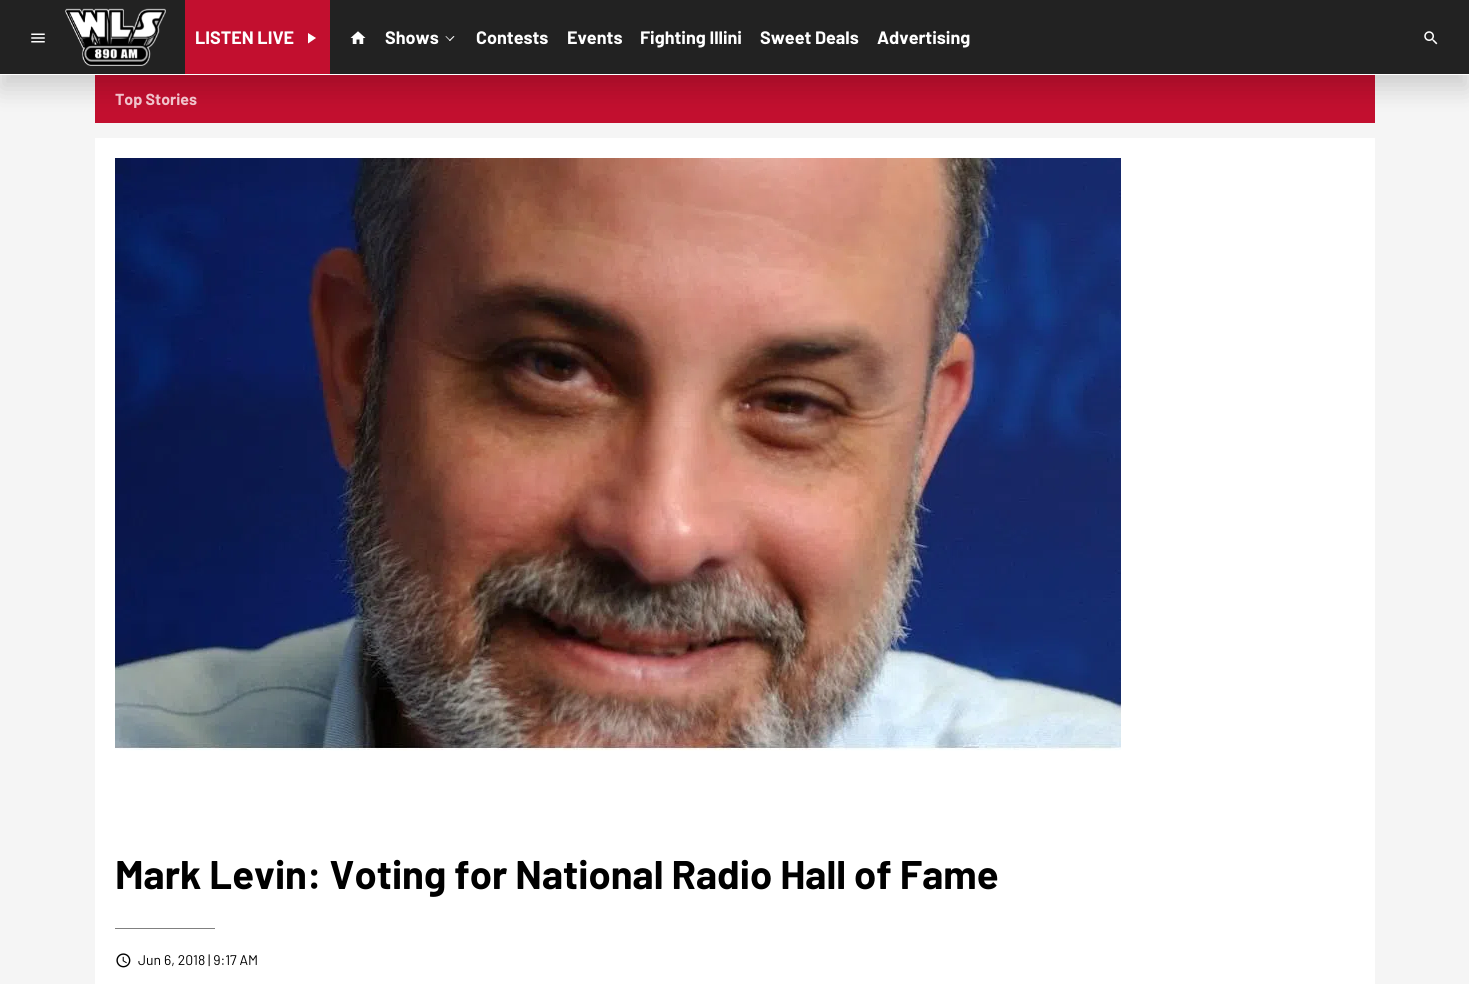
#include <cairo/cairo.h>
#include <math.h>
#include <stddef.h>

static cairo_t *cr;

static void use_color(int r, int g, int b) {
  cairo_set_source_rgb(cr, r / 255.0, g / 255.0, b / 255.0);
}

static void text(double x, double y, const char *s, const char *family, double size, int italic, int bold, int r, int g, int b) {
  cairo_select_font_face(cr, family, italic ? CAIRO_FONT_SLANT_ITALIC : CAIRO_FONT_SLANT_NORMAL,
    bold ? CAIRO_FONT_WEIGHT_BOLD : CAIRO_FONT_WEIGHT_NORMAL);
  cairo_set_font_size(cr, size);
  use_color(r, g, b);
  cairo_move_to(cr, x, y);
  cairo_show_text(cr, s);
}

static void box(double x, double y, double w, double h, int r, int g, int b) {
  use_color(r, g, b);
  cairo_rectangle(cr, x, y, w, h);
  cairo_fill(cr);
}

static void round_rect(double x, double y, double w, double h, double r) {
  cairo_new_sub_path(cr);
  cairo_arc(cr, x + w - r, y + h - r, r, 0, M_PI / 2);
  cairo_arc(cr, x + r, y + h - r, r, M_PI / 2, M_PI);
  cairo_arc(cr, x + r, y + r, r, M_PI, 1.5 * M_PI);
  cairo_arc(cr, x + w - r, y + r, r, 1.5 * M_PI, 2 * M_PI);
  cairo_close_path(cr);
}

static void shadow(double x, double y, double w, double h, double r, double blur, double alpha) {
  cairo_push_group_with_content(cr, CAIRO_CONTENT_ALPHA);
  cairo_set_operator(cr, CAIRO_OPERATOR_SOURCE);
  for (int i = 15; i >= -15 && fmin(w, h) + blur * i / 3 > 0; i -= 2) {
    double e = blur * i / 6;
    cairo_set_source_rgba(cr, 0, 0, 0, alpha * erfc((i - 1) / 8.5) / 2);
    round_rect(x - e, y - e, w + 2 * e, h + 2 * e, fmax(0, fmin(r + e + blur * .6, fmin(w, h) / 2 + e)));
    cairo_fill(cr);
  }
  cairo_pattern_t *soft = cairo_pop_group(cr);
  cairo_mask(cr, soft);
  cairo_pattern_destroy(soft);
}

static void picture(const char *path, double x, double y, double w, double h) {
  cairo_surface_t *image = cairo_image_surface_create_from_png(path);
  cairo_save(cr);
  cairo_set_source_surface(cr, image, x, y);
  cairo_rectangle(cr, x, y, w, h);
  cairo_fill(cr);
  cairo_restore(cr);
  cairo_surface_destroy(image);
}

static void draw(void) {
  use_color(245, 245, 245);
  cairo_paint(cr);
  box(95, 75, 1280, 48, 194, 15, 47);
  use_color(0, 0, 0);
  shadow(0, 14, 1469, 75, 0, 12.5, 0.16);
  box(0, 0, 1469, 74, 34, 34, 34);
  box(0, 74, 1469, 1, 255, 255, 255);
  picture("img_01.png", 31, 33, 14, 10);
  picture("img_02.png", 65, 8, 101, 58);
  box(185, 0, 145, 74, 194, 15, 47);
  use_color(255, 255, 255);
  cairo_new_path(cr);
  cairo_move_to(cr, 308, 33);
  cairo_line_to(cr, 308, 43.5);
  cairo_line_to(cr, 316, 38);
  cairo_close_path(cr);
  cairo_fill(cr);
  picture("img_03.png", 350, 31, 16, 13);
  cairo_new_path(cr);
  cairo_move_to(cr, 454.5, 36.5);
  cairo_line_to(cr, 450, 41);
  cairo_line_to(cr, 449, 40.5);
  cairo_line_to(cr, 453.5, 36);
  cairo_close_path(cr);
  cairo_fill(cr);
  cairo_new_path(cr);
  cairo_move_to(cr, 450.5, 40.5);
  cairo_line_to(cr, 450, 41);
  cairo_line_to(cr, 445.5, 36.5);
  cairo_line_to(cr, 446, 36);
  cairo_close_path(cr);
  cairo_fill(cr);
  picture("img_04.png", 1424, 31, 14, 14);
  box(95, 138, 1280, 846, 255, 255, 255);
  picture("img_05.png", 115, 158, 1006, 593);
  box(115, 928, 100, 1, 128, 128, 128);
  picture("img_06.png", 116, 953, 15, 15);
  text(195, 44, "LISTEN LIVE", "Barlow", 18, 0, 1, 255, 255, 255);
  text(385, 44, "Shows", "Barlow", 18, 0, 1, 255, 255, 255);
  text(476, 44, "Contests", "Barlow", 18, 0, 1, 255, 255, 255);
  text(567, 44, "Events", "Barlow", 18, 0, 1, 255, 255, 255);
  text(640, 44, "Fighting Illini", "Barlow", 18, 0, 1, 255, 255, 255);
  text(760, 44, "Sweet Deals", "Barlow", 18, 0, 1, 255, 255, 255);
  text(877, 44, "Advertising", "Barlow", 18, 0, 1, 255, 255, 255);
  text(115, 105, "Top Stories", "Barlow", 16, 0, 1, 240, 195, 203);
  text(115, 889, "Mark Levin: Voting for National Radio Hall of Fame", "Barlow", 40, 0, 1, 0, 0, 0);
  text(138, 965, "Jun 6, 2018 | 9:17 AM", "Barlow", 14, 0, 0, 0, 0, 0);
}

int main(void) {
  cairo_surface_t *surface = cairo_image_surface_create(CAIRO_FORMAT_RGB24, 1469, 984);
  cr = cairo_create(surface);
  cairo_font_options_t *options = cairo_font_options_create();
  cairo_font_options_set_hint_metrics(options, CAIRO_HINT_METRICS_OFF);
  cairo_font_options_set_hint_style(options, CAIRO_HINT_STYLE_NONE);
  cairo_set_font_options(cr, options);
  cairo_set_miter_limit(cr, 4);
  draw();
  cairo_surface_write_to_png(surface, "out.png");
  cairo_font_options_destroy(options);
  cairo_destroy(cr);
  cairo_surface_destroy(surface);
  return 0;
}
